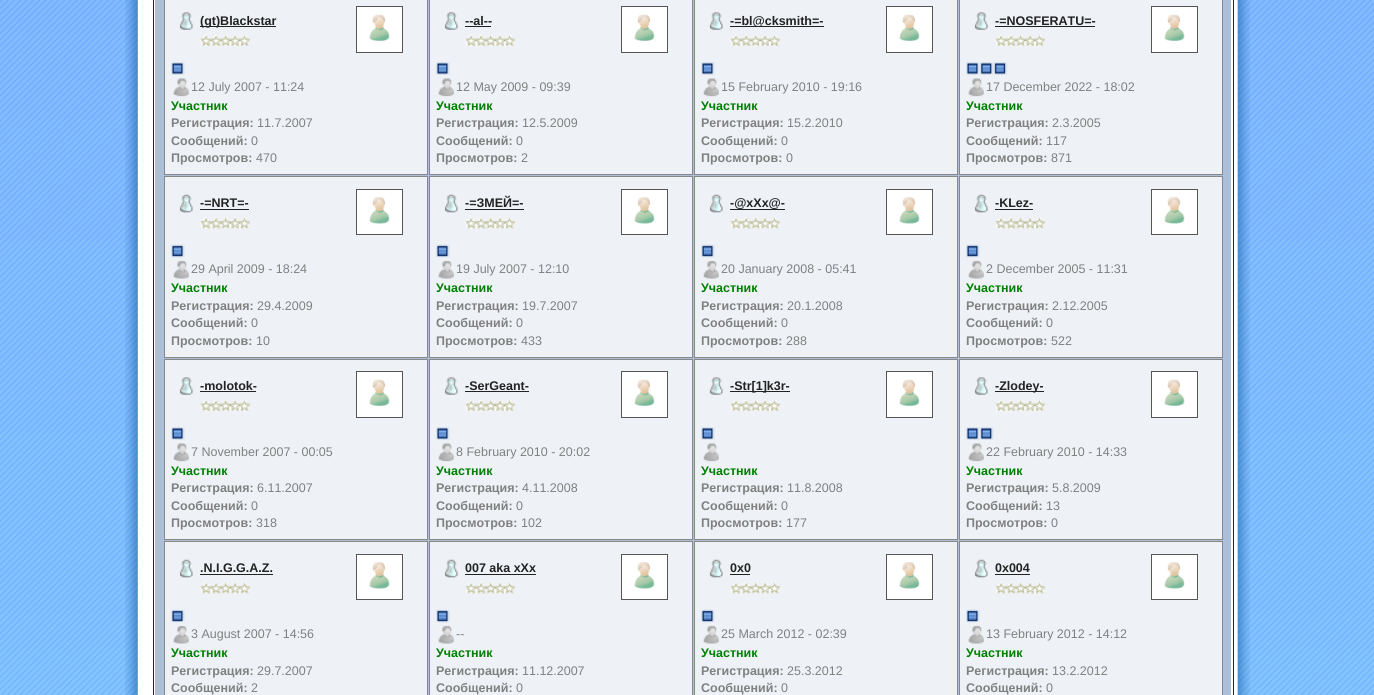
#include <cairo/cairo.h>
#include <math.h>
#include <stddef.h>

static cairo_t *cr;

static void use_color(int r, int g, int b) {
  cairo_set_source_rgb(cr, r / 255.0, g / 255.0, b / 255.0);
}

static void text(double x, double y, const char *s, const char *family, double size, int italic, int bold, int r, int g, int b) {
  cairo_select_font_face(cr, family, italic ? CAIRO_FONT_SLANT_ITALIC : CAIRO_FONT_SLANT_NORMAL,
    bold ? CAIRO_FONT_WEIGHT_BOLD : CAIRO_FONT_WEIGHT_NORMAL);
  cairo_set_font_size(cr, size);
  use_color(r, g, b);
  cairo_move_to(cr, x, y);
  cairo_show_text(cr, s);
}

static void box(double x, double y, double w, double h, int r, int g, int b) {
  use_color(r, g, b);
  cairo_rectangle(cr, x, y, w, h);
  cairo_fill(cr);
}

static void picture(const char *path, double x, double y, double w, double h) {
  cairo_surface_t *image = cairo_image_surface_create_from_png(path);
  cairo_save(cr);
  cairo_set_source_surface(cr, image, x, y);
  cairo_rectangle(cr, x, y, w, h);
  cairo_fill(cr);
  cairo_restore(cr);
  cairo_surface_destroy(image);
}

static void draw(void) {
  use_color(255, 255, 255);
  cairo_paint(cr);
  picture("img_01.png", 0, 0, 1374, 695);
  picture("img_02.png", 125, 0, 13, 695);
  box(138, 0, 1100, 695, 255, 255, 255);
  cairo_rectangle(cr, 153.5, -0.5, 1080, 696);
  use_color(7, 42, 102);
  cairo_set_line_width(cr, 1);
  cairo_stroke(cr);
  box(155, 0, 1076, 695, 172, 191, 217);
  use_color(238, 242, 247);
  cairo_rectangle(cr, 164.5, -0.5, 263, 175);
  cairo_fill_preserve(cr);
  use_color(136, 136, 136);
  cairo_stroke(cr);
  picture("img_03.png", 179, 12, 14, 18);
  box(200, 26, 76, 1, 34, 34, 34);
  picture("img_04.png", 200, 34, 51, 12);
  use_color(255, 255, 255);
  cairo_rectangle(cr, 356.5, 6.5, 46, 46);
  cairo_fill_preserve(cr);
  use_color(85, 85, 85);
  cairo_stroke(cr);
  picture("img_05.png", 369, 14, 21, 27);
  picture("img_06.png", 171, 62, 14, 13);
  picture("img_07.png", 173, 78, 16, 19);
  use_color(238, 242, 247);
  cairo_rectangle(cr, 429.5, -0.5, 263, 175);
  cairo_fill_preserve(cr);
  use_color(136, 136, 136);
  cairo_stroke(cr);
  picture("img_03.png", 444, 12, 14, 18);
  box(465, 26, 26, 1, 34, 34, 34);
  picture("img_08.png", 465, 34, 51, 12);
  use_color(255, 255, 255);
  cairo_rectangle(cr, 621.5, 6.5, 46, 46);
  cairo_fill_preserve(cr);
  use_color(85, 85, 85);
  cairo_stroke(cr);
  picture("img_05.png", 634, 14, 21, 27);
  picture("img_06.png", 436, 62, 14, 13);
  picture("img_07.png", 438, 78, 16, 19);
  use_color(238, 242, 247);
  cairo_rectangle(cr, 694.5, -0.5, 263, 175);
  cairo_fill_preserve(cr);
  use_color(136, 136, 136);
  cairo_stroke(cr);
  picture("img_03.png", 709, 12, 14, 18);
  box(730, 26, 94, 1, 34, 34, 34);
  picture("img_09.png", 730, 34, 51, 12);
  use_color(255, 255, 255);
  cairo_rectangle(cr, 886.5, 6.5, 46, 46);
  cairo_fill_preserve(cr);
  use_color(85, 85, 85);
  cairo_stroke(cr);
  picture("img_05.png", 899, 14, 21, 27);
  picture("img_06.png", 701, 62, 14, 13);
  picture("img_07.png", 703, 78, 16, 19);
  use_color(238, 242, 247);
  cairo_rectangle(cr, 959.5, -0.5, 263, 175);
  cairo_fill_preserve(cr);
  use_color(136, 136, 136);
  cairo_stroke(cr);
  picture("img_03.png", 974, 12, 14, 18);
  box(995, 26, 100, 1, 34, 34, 34);
  picture("img_10.png", 995, 34, 51, 12);
  use_color(255, 255, 255);
  cairo_rectangle(cr, 1151.5, 6.5, 46, 46);
  cairo_fill_preserve(cr);
  use_color(85, 85, 85);
  cairo_stroke(cr);
  picture("img_05.png", 1164, 14, 21, 27);
  picture("img_06.png", 966, 62, 14, 13);
  picture("img_11.png", 980, 62, 14, 13);
  picture("img_12.png", 993, 62, 15, 13);
  picture("img_07.png", 968, 78, 16, 19);
  use_color(238, 242, 247);
  cairo_rectangle(cr, 164.5, 176.5, 263, 181);
  cairo_fill_preserve(cr);
  use_color(136, 136, 136);
  cairo_stroke(cr);
  picture("img_13.png", 179, 194, 14, 19);
  box(200, 209, 49, 1, 34, 34, 34);
  picture("img_14.png", 200, 217, 51, 12);
  use_color(255, 255, 255);
  cairo_rectangle(cr, 356.5, 189.5, 46, 45);
  cairo_fill_preserve(cr);
  use_color(85, 85, 85);
  cairo_stroke(cr);
  picture("img_15.png", 369, 197, 21, 27);
  picture("img_16.png", 171, 244, 14, 14);
  picture("img_17.png", 173, 260, 16, 19);
  use_color(238, 242, 247);
  cairo_rectangle(cr, 429.5, 176.5, 263, 181);
  cairo_fill_preserve(cr);
  use_color(136, 136, 136);
  cairo_stroke(cr);
  picture("img_13.png", 444, 194, 14, 19);
  box(465, 209, 59, 1, 34, 34, 34);
  picture("img_18.png", 465, 217, 51, 12);
  use_color(255, 255, 255);
  cairo_rectangle(cr, 621.5, 189.5, 46, 45);
  cairo_fill_preserve(cr);
  use_color(85, 85, 85);
  cairo_stroke(cr);
  picture("img_15.png", 634, 197, 21, 27);
  picture("img_16.png", 436, 244, 14, 14);
  picture("img_17.png", 438, 260, 16, 19);
  use_color(238, 242, 247);
  cairo_rectangle(cr, 694.5, 176.5, 263, 181);
  cairo_fill_preserve(cr);
  use_color(136, 136, 136);
  cairo_stroke(cr);
  picture("img_13.png", 709, 194, 14, 19);
  box(730, 209, 55, 1, 34, 34, 34);
  picture("img_19.png", 730, 217, 51, 12);
  use_color(255, 255, 255);
  cairo_rectangle(cr, 886.5, 189.5, 46, 45);
  cairo_fill_preserve(cr);
  use_color(85, 85, 85);
  cairo_stroke(cr);
  picture("img_15.png", 899, 197, 21, 27);
  picture("img_16.png", 701, 244, 14, 14);
  picture("img_17.png", 703, 260, 16, 19);
  use_color(238, 242, 247);
  cairo_rectangle(cr, 959.5, 176.5, 263, 181);
  cairo_fill_preserve(cr);
  use_color(136, 136, 136);
  cairo_stroke(cr);
  picture("img_13.png", 974, 194, 14, 19);
  box(995, 209, 38, 1, 34, 34, 34);
  picture("img_20.png", 995, 217, 51, 12);
  use_color(255, 255, 255);
  cairo_rectangle(cr, 1151.5, 189.5, 46, 45);
  cairo_fill_preserve(cr);
  use_color(85, 85, 85);
  cairo_stroke(cr);
  picture("img_15.png", 1164, 197, 21, 27);
  picture("img_16.png", 966, 244, 14, 14);
  picture("img_17.png", 968, 260, 16, 19);
  use_color(238, 242, 247);
  cairo_rectangle(cr, 164.5, 359.5, 263, 180);
  cairo_fill_preserve(cr);
  use_color(136, 136, 136);
  cairo_stroke(cr);
  picture("img_03.png", 179, 377, 14, 18);
  box(200, 391, 56, 1, 34, 34, 34);
  picture("img_04.png", 200, 399, 51, 12);
  use_color(255, 255, 255);
  cairo_rectangle(cr, 356.5, 371.5, 46, 46);
  cairo_fill_preserve(cr);
  use_color(85, 85, 85);
  cairo_stroke(cr);
  picture("img_05.png", 369, 379, 21, 27);
  picture("img_06.png", 171, 427, 14, 13);
  picture("img_07.png", 173, 443, 16, 19);
  use_color(238, 242, 247);
  cairo_rectangle(cr, 429.5, 359.5, 263, 180);
  cairo_fill_preserve(cr);
  use_color(136, 136, 136);
  cairo_stroke(cr);
  picture("img_03.png", 444, 377, 14, 18);
  box(465, 391, 64, 1, 34, 34, 34);
  picture("img_08.png", 465, 399, 51, 12);
  use_color(255, 255, 255);
  cairo_rectangle(cr, 621.5, 371.5, 46, 46);
  cairo_fill_preserve(cr);
  use_color(85, 85, 85);
  cairo_stroke(cr);
  picture("img_05.png", 634, 379, 21, 27);
  picture("img_06.png", 436, 427, 14, 13);
  picture("img_07.png", 438, 443, 16, 19);
  use_color(238, 242, 247);
  cairo_rectangle(cr, 694.5, 359.5, 263, 180);
  cairo_fill_preserve(cr);
  use_color(136, 136, 136);
  cairo_stroke(cr);
  picture("img_03.png", 709, 377, 14, 18);
  box(730, 391, 60, 1, 34, 34, 34);
  picture("img_09.png", 730, 399, 51, 12);
  use_color(255, 255, 255);
  cairo_rectangle(cr, 886.5, 371.5, 46, 46);
  cairo_fill_preserve(cr);
  use_color(85, 85, 85);
  cairo_stroke(cr);
  picture("img_05.png", 899, 379, 21, 27);
  picture("img_06.png", 701, 427, 14, 13);
  picture("img_07.png", 703, 443, 16, 19);
  use_color(238, 242, 247);
  cairo_rectangle(cr, 959.5, 359.5, 263, 180);
  cairo_fill_preserve(cr);
  use_color(136, 136, 136);
  cairo_stroke(cr);
  picture("img_03.png", 974, 377, 14, 18);
  box(995, 391, 49, 1, 34, 34, 34);
  picture("img_10.png", 995, 399, 51, 12);
  use_color(255, 255, 255);
  cairo_rectangle(cr, 1151.5, 371.5, 46, 46);
  cairo_fill_preserve(cr);
  use_color(85, 85, 85);
  cairo_stroke(cr);
  picture("img_05.png", 1164, 379, 21, 27);
  picture("img_06.png", 966, 427, 14, 13);
  picture("img_11.png", 980, 427, 14, 13);
  picture("img_07.png", 968, 443, 16, 19);
  use_color(238, 242, 247);
  cairo_rectangle(cr, 164.5, 541.5, 263, 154);
  cairo_fill_preserve(cr);
  use_color(136, 136, 136);
  cairo_stroke(cr);
  picture("img_13.png", 179, 559, 14, 19);
  box(200, 574, 73, 1, 34, 34, 34);
  picture("img_14.png", 200, 582, 51, 12);
  use_color(255, 255, 255);
  cairo_rectangle(cr, 356.5, 554.5, 46, 45);
  cairo_fill_preserve(cr);
  use_color(85, 85, 85);
  cairo_stroke(cr);
  picture("img_15.png", 369, 562, 21, 27);
  picture("img_16.png", 171, 609, 14, 14);
  picture("img_17.png", 173, 625, 16, 19);
  use_color(238, 242, 247);
  cairo_rectangle(cr, 429.5, 541.5, 263, 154);
  cairo_fill_preserve(cr);
  use_color(136, 136, 136);
  cairo_stroke(cr);
  picture("img_13.png", 444, 559, 14, 19);
  box(465, 574, 71, 1, 34, 34, 34);
  picture("img_18.png", 465, 582, 51, 12);
  use_color(255, 255, 255);
  cairo_rectangle(cr, 621.5, 554.5, 46, 45);
  cairo_fill_preserve(cr);
  use_color(85, 85, 85);
  cairo_stroke(cr);
  picture("img_15.png", 634, 562, 21, 27);
  picture("img_16.png", 436, 609, 14, 14);
  picture("img_17.png", 438, 625, 16, 19);
  use_color(238, 242, 247);
  cairo_rectangle(cr, 694.5, 541.5, 263, 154);
  cairo_fill_preserve(cr);
  use_color(136, 136, 136);
  cairo_stroke(cr);
  picture("img_13.png", 709, 559, 14, 19);
  box(730, 574, 20, 1, 34, 34, 34);
  picture("img_19.png", 730, 582, 51, 12);
  use_color(255, 255, 255);
  cairo_rectangle(cr, 886.5, 554.5, 46, 45);
  cairo_fill_preserve(cr);
  use_color(85, 85, 85);
  cairo_stroke(cr);
  picture("img_15.png", 899, 562, 21, 27);
  picture("img_16.png", 701, 609, 14, 14);
  picture("img_17.png", 703, 625, 16, 19);
  use_color(238, 242, 247);
  cairo_rectangle(cr, 959.5, 541.5, 263, 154);
  cairo_fill_preserve(cr);
  use_color(136, 136, 136);
  cairo_stroke(cr);
  picture("img_13.png", 974, 559, 14, 19);
  box(995, 574, 35, 1, 34, 34, 34);
  picture("img_20.png", 995, 582, 51, 12);
  use_color(255, 255, 255);
  cairo_rectangle(cr, 1151.5, 554.5, 46, 45);
  cairo_fill_preserve(cr);
  use_color(85, 85, 85);
  cairo_stroke(cr);
  picture("img_15.png", 1164, 562, 21, 27);
  picture("img_16.png", 966, 609, 14, 14);
  picture("img_17.png", 968, 625, 16, 19);
  picture("img_21.png", 1237, 0, 13, 695);
  text(200, 25, "(gt)Blackstar", "Liberation Sans", 12.5, 0, 1, 34, 34, 34);
  text(191, 91, "12 July 2007 - 11:24", "Liberation Sans", 12.5, 0, 0, 128, 128, 128);
  text(171, 110, "Участник", "Liberation Sans", 12.5, 0, 1, 0, 128, 0);
  text(171, 127, "Регистрация:", "Liberation Sans", 12.5, 0, 1, 128, 128, 128);
  text(257, 127, "11.7.2007", "Liberation Sans", 12.5, 0, 0, 128, 128, 128);
  text(171, 145, "Сообщений:", "Liberation Sans", 12.5, 0, 1, 128, 128, 128);
  text(251, 145, "0", "Liberation Sans", 12.5, 0, 0, 128, 128, 128);
  text(171, 162, "Просмотров:", "Liberation Sans", 12.5, 0, 1, 128, 128, 128);
  text(256, 162, "470", "Liberation Sans", 12.5, 0, 0, 128, 128, 128);
  text(465, 25, "--al--", "Liberation Sans", 12.5, 0, 1, 34, 34, 34);
  text(456, 91, "12 May 2009 - 09:39", "Liberation Sans", 12.5, 0, 0, 128, 128, 128);
  text(436, 110, "Участник", "Liberation Sans", 12.5, 0, 1, 0, 128, 0);
  text(436, 127, "Регистрация:", "Liberation Sans", 12.5, 0, 1, 128, 128, 128);
  text(522, 127, "12.5.2009", "Liberation Sans", 12.5, 0, 0, 128, 128, 128);
  text(436, 145, "Сообщений:", "Liberation Sans", 12.5, 0, 1, 128, 128, 128);
  text(516, 145, "0", "Liberation Sans", 12.5, 0, 0, 128, 128, 128);
  text(436, 162, "Просмотров:", "Liberation Sans", 12.5, 0, 1, 128, 128, 128);
  text(521, 162, "2", "Liberation Sans", 12.5, 0, 0, 128, 128, 128);
  text(730, 25, "-=bl@cksmith=-", "Liberation Sans", 12.5, 0, 1, 34, 34, 34);
  text(721, 91, "15 February 2010 - 19:16", "Liberation Sans", 12.5, 0, 0, 128, 128, 128);
  text(701, 110, "Участник", "Liberation Sans", 12.5, 0, 1, 0, 128, 0);
  text(701, 127, "Регистрация:", "Liberation Sans", 12.5, 0, 1, 128, 128, 128);
  text(787, 127, "15.2.2010", "Liberation Sans", 12.5, 0, 0, 128, 128, 128);
  text(701, 145, "Сообщений:", "Liberation Sans", 12.5, 0, 1, 128, 128, 128);
  text(781, 145, "0", "Liberation Sans", 12.5, 0, 0, 128, 128, 128);
  text(701, 162, "Просмотров:", "Liberation Sans", 12.5, 0, 1, 128, 128, 128);
  text(786, 162, "0", "Liberation Sans", 12.5, 0, 0, 128, 128, 128);
  text(995, 25, "-=NOSFERATU=-", "Liberation Sans", 12.5, 0, 1, 34, 34, 34);
  text(986, 91, "17 December 2022 - 18:02", "Liberation Sans", 12.5, 0, 0, 128, 128, 128);
  text(966, 110, "Участник", "Liberation Sans", 12.5, 0, 1, 0, 128, 0);
  text(966, 127, "Регистрация:", "Liberation Sans", 12.5, 0, 1, 128, 128, 128);
  text(1052, 127, "2.3.2005", "Liberation Sans", 12.5, 0, 0, 128, 128, 128);
  text(966, 145, "Сообщений:", "Liberation Sans", 12.5, 0, 1, 128, 128, 128);
  text(1046, 145, "117", "Liberation Sans", 12.5, 0, 0, 128, 128, 128);
  text(966, 162, "Просмотров:", "Liberation Sans", 12.5, 0, 1, 128, 128, 128);
  text(1051, 162, "871", "Liberation Sans", 12.5, 0, 0, 128, 128, 128);
  text(200, 207, "-=NRT=-", "Liberation Sans", 12.5, 0, 1, 34, 34, 34);
  text(191, 273, "29 April 2009 - 18:24", "Liberation Sans", 12.5, 0, 0, 128, 128, 128);
  text(171, 292, "Участник", "Liberation Sans", 12.5, 0, 1, 0, 128, 0);
  text(171, 310, "Регистрация:", "Liberation Sans", 12.5, 0, 1, 128, 128, 128);
  text(257, 310, "29.4.2009", "Liberation Sans", 12.5, 0, 0, 128, 128, 128);
  text(171, 327, "Сообщений:", "Liberation Sans", 12.5, 0, 1, 128, 128, 128);
  text(251, 327, "0", "Liberation Sans", 12.5, 0, 0, 128, 128, 128);
  text(171, 345, "Просмотров:", "Liberation Sans", 12.5, 0, 1, 128, 128, 128);
  text(256, 345, "10", "Liberation Sans", 12.5, 0, 0, 128, 128, 128);
  text(465, 207, "-=ЗМЕЙ=-", "Liberation Sans", 12.5, 0, 1, 34, 34, 34);
  text(456, 273, "19 July 2007 - 12:10", "Liberation Sans", 12.5, 0, 0, 128, 128, 128);
  text(436, 292, "Участник", "Liberation Sans", 12.5, 0, 1, 0, 128, 0);
  text(436, 310, "Регистрация:", "Liberation Sans", 12.5, 0, 1, 128, 128, 128);
  text(522, 310, "19.7.2007", "Liberation Sans", 12.5, 0, 0, 128, 128, 128);
  text(436, 327, "Сообщений:", "Liberation Sans", 12.5, 0, 1, 128, 128, 128);
  text(516, 327, "0", "Liberation Sans", 12.5, 0, 0, 128, 128, 128);
  text(436, 345, "Просмотров:", "Liberation Sans", 12.5, 0, 1, 128, 128, 128);
  text(521, 345, "433", "Liberation Sans", 12.5, 0, 0, 128, 128, 128);
  text(730, 207, "-@xXx@-", "Liberation Sans", 12.5, 0, 1, 34, 34, 34);
  text(721, 273, "20 January 2008 - 05:41", "Liberation Sans", 12.5, 0, 0, 128, 128, 128);
  text(701, 292, "Участник", "Liberation Sans", 12.5, 0, 1, 0, 128, 0);
  text(701, 310, "Регистрация:", "Liberation Sans", 12.5, 0, 1, 128, 128, 128);
  text(787, 310, "20.1.2008", "Liberation Sans", 12.5, 0, 0, 128, 128, 128);
  text(701, 327, "Сообщений:", "Liberation Sans", 12.5, 0, 1, 128, 128, 128);
  text(781, 327, "0", "Liberation Sans", 12.5, 0, 0, 128, 128, 128);
  text(701, 345, "Просмотров:", "Liberation Sans", 12.5, 0, 1, 128, 128, 128);
  text(786, 345, "288", "Liberation Sans", 12.5, 0, 0, 128, 128, 128);
  text(995, 207, "-KLez-", "Liberation Sans", 12.5, 0, 1, 34, 34, 34);
  text(986, 273, "2 December 2005 - 11:31", "Liberation Sans", 12.5, 0, 0, 128, 128, 128);
  text(966, 292, "Участник", "Liberation Sans", 12.5, 0, 1, 0, 128, 0);
  text(966, 310, "Регистрация:", "Liberation Sans", 12.5, 0, 1, 128, 128, 128);
  text(1052, 310, "2.12.2005", "Liberation Sans", 12.5, 0, 0, 128, 128, 128);
  text(966, 327, "Сообщений:", "Liberation Sans", 12.5, 0, 1, 128, 128, 128);
  text(1046, 327, "0", "Liberation Sans", 12.5, 0, 0, 128, 128, 128);
  text(966, 345, "Просмотров:", "Liberation Sans", 12.5, 0, 1, 128, 128, 128);
  text(1051, 345, "522", "Liberation Sans", 12.5, 0, 0, 128, 128, 128);
  text(200, 390, "-molotok-", "Liberation Sans", 12.5, 0, 1, 34, 34, 34);
  text(191, 456, "7 November 2007 - 00:05", "Liberation Sans", 12.5, 0, 0, 128, 128, 128);
  text(171, 475, "Участник", "Liberation Sans", 12.5, 0, 1, 0, 128, 0);
  text(171, 492, "Регистрация:", "Liberation Sans", 12.5, 0, 1, 128, 128, 128);
  text(257, 492, "6.11.2007", "Liberation Sans", 12.5, 0, 0, 128, 128, 128);
  text(171, 510, "Сообщений:", "Liberation Sans", 12.5, 0, 1, 128, 128, 128);
  text(251, 510, "0", "Liberation Sans", 12.5, 0, 0, 128, 128, 128);
  text(171, 527, "Просмотров:", "Liberation Sans", 12.5, 0, 1, 128, 128, 128);
  text(256, 527, "318", "Liberation Sans", 12.5, 0, 0, 128, 128, 128);
  text(465, 390, "-SerGeant-", "Liberation Sans", 12.5, 0, 1, 34, 34, 34);
  text(456, 456, "8 February 2010 - 20:02", "Liberation Sans", 12.5, 0, 0, 128, 128, 128);
  text(436, 475, "Участник", "Liberation Sans", 12.5, 0, 1, 0, 128, 0);
  text(436, 492, "Регистрация:", "Liberation Sans", 12.5, 0, 1, 128, 128, 128);
  text(522, 492, "4.11.2008", "Liberation Sans", 12.5, 0, 0, 128, 128, 128);
  text(436, 510, "Сообщений:", "Liberation Sans", 12.5, 0, 1, 128, 128, 128);
  text(516, 510, "0", "Liberation Sans", 12.5, 0, 0, 128, 128, 128);
  text(436, 527, "Просмотров:", "Liberation Sans", 12.5, 0, 1, 128, 128, 128);
  text(521, 527, "102", "Liberation Sans", 12.5, 0, 0, 128, 128, 128);
  text(730, 390, "-Str[1]k3r-", "Liberation Sans", 12.5, 0, 1, 34, 34, 34);
  text(701, 475, "Участник", "Liberation Sans", 12.5, 0, 1, 0, 128, 0);
  text(701, 492, "Регистрация:", "Liberation Sans", 12.5, 0, 1, 128, 128, 128);
  text(787, 492, "11.8.2008", "Liberation Sans", 12.5, 0, 0, 128, 128, 128);
  text(701, 510, "Сообщений:", "Liberation Sans", 12.5, 0, 1, 128, 128, 128);
  text(781, 510, "0", "Liberation Sans", 12.5, 0, 0, 128, 128, 128);
  text(701, 527, "Просмотров:", "Liberation Sans", 12.5, 0, 1, 128, 128, 128);
  text(786, 527, "177", "Liberation Sans", 12.5, 0, 0, 128, 128, 128);
  text(995, 390, "-Zlodey-", "Liberation Sans", 12.5, 0, 1, 34, 34, 34);
  text(986, 456, "22 February 2010 - 14:33", "Liberation Sans", 12.5, 0, 0, 128, 128, 128);
  text(966, 475, "Участник", "Liberation Sans", 12.5, 0, 1, 0, 128, 0);
  text(966, 492, "Регистрация:", "Liberation Sans", 12.5, 0, 1, 128, 128, 128);
  text(1052, 492, "5.8.2009", "Liberation Sans", 12.5, 0, 0, 128, 128, 128);
  text(966, 510, "Сообщений:", "Liberation Sans", 12.5, 0, 1, 128, 128, 128);
  text(1046, 510, "13", "Liberation Sans", 12.5, 0, 0, 128, 128, 128);
  text(966, 527, "Просмотров:", "Liberation Sans", 12.5, 0, 1, 128, 128, 128);
  text(1051, 527, "0", "Liberation Sans", 12.5, 0, 0, 128, 128, 128);
  text(200, 572, ".N.I.G.G.A.Z.", "Liberation Sans", 12.5, 0, 1, 34, 34, 34);
  text(191, 638, "3 August 2007 - 14:56", "Liberation Sans", 12.5, 0, 0, 128, 128, 128);
  text(171, 657, "Участник", "Liberation Sans", 12.5, 0, 1, 0, 128, 0);
  text(171, 675, "Регистрация:", "Liberation Sans", 12.5, 0, 1, 128, 128, 128);
  text(257, 675, "29.7.2007", "Liberation Sans", 12.5, 0, 0, 128, 128, 128);
  text(171, 692, "Сообщений:", "Liberation Sans", 12.5, 0, 1, 128, 128, 128);
  text(251, 692, "2", "Liberation Sans", 12.5, 0, 0, 128, 128, 128);
  text(465, 572, "007 aka xXx", "Liberation Sans", 12.5, 0, 1, 34, 34, 34);
  text(456, 638, "--", "Liberation Sans", 12.5, 0, 0, 128, 128, 128);
  text(436, 657, "Участник", "Liberation Sans", 12.5, 0, 1, 0, 128, 0);
  text(436, 675, "Регистрация:", "Liberation Sans", 12.5, 0, 1, 128, 128, 128);
  text(522, 675, "11.12.2007", "Liberation Sans", 12.5, 0, 0, 128, 128, 128);
  text(436, 692, "Сообщений:", "Liberation Sans", 12.5, 0, 1, 128, 128, 128);
  text(516, 692, "0", "Liberation Sans", 12.5, 0, 0, 128, 128, 128);
  text(730, 572, "0x0", "Liberation Sans", 12.5, 0, 1, 34, 34, 34);
  text(721, 638, "25 March 2012 - 02:39", "Liberation Sans", 12.5, 0, 0, 128, 128, 128);
  text(701, 657, "Участник", "Liberation Sans", 12.5, 0, 1, 0, 128, 0);
  text(701, 675, "Регистрация:", "Liberation Sans", 12.5, 0, 1, 128, 128, 128);
  text(787, 675, "25.3.2012", "Liberation Sans", 12.5, 0, 0, 128, 128, 128);
  text(701, 692, "Сообщений:", "Liberation Sans", 12.5, 0, 1, 128, 128, 128);
  text(781, 692, "0", "Liberation Sans", 12.5, 0, 0, 128, 128, 128);
  text(995, 572, "0x004", "Liberation Sans", 12.5, 0, 1, 34, 34, 34);
  text(986, 638, "13 February 2012 - 14:12", "Liberation Sans", 12.5, 0, 0, 128, 128, 128);
  text(966, 657, "Участник", "Liberation Sans", 12.5, 0, 1, 0, 128, 0);
  text(966, 675, "Регистрация:", "Liberation Sans", 12.5, 0, 1, 128, 128, 128);
  text(1052, 675, "13.2.2012", "Liberation Sans", 12.5, 0, 0, 128, 128, 128);
  text(966, 692, "Сообщений:", "Liberation Sans", 12.5, 0, 1, 128, 128, 128);
  text(1046, 692, "0", "Liberation Sans", 12.5, 0, 0, 128, 128, 128);
}

int main(void) {
  cairo_surface_t *surface = cairo_image_surface_create(CAIRO_FORMAT_RGB24, 1374, 695);
  cr = cairo_create(surface);
  cairo_font_options_t *options = cairo_font_options_create();
  cairo_font_options_set_hint_metrics(options, CAIRO_HINT_METRICS_OFF);
  cairo_font_options_set_hint_style(options, CAIRO_HINT_STYLE_NONE);
  cairo_set_font_options(cr, options);
  cairo_set_miter_limit(cr, 4);
  draw();
  cairo_surface_write_to_png(surface, "out.png");
  cairo_font_options_destroy(options);
  cairo_destroy(cr);
  cairo_surface_destroy(surface);
  return 0;
}
